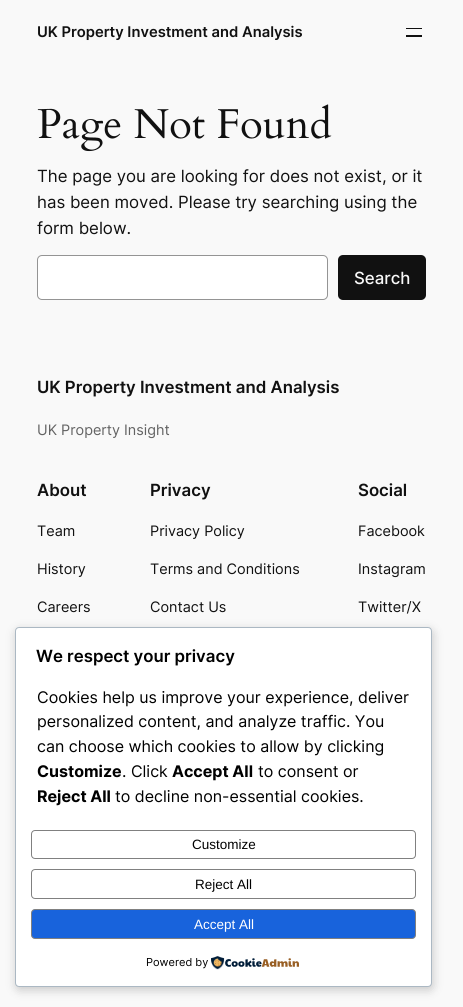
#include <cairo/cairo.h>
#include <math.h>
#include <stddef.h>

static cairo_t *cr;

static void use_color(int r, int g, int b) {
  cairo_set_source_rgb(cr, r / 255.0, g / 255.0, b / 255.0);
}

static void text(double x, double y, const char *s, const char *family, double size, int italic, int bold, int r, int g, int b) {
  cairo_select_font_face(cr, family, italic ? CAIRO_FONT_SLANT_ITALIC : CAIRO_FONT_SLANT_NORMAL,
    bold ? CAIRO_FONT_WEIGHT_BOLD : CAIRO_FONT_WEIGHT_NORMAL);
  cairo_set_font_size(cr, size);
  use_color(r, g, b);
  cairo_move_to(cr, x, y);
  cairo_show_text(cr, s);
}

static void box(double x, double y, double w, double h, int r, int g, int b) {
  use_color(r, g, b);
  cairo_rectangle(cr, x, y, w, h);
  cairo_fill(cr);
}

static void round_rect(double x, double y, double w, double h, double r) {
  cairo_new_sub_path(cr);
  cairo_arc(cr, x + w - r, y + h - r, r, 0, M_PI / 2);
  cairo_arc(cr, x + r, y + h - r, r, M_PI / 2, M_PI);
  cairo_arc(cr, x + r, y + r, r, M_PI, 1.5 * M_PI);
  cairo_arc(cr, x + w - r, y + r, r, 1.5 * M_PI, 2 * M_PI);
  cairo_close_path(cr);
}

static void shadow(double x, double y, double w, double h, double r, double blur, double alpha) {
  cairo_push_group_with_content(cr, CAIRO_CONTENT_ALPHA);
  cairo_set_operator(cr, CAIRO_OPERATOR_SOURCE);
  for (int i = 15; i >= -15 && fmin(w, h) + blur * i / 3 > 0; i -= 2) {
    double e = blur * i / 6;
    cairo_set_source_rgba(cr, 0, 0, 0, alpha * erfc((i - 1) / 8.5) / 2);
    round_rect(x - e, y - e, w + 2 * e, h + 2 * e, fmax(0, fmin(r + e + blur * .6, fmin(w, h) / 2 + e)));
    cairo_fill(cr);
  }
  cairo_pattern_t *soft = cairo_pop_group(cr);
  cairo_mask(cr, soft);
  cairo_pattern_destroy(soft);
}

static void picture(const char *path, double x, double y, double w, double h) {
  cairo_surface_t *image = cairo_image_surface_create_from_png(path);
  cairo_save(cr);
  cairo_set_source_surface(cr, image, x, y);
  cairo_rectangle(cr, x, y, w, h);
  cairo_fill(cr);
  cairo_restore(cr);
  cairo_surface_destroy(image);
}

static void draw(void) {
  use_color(249, 249, 249);
  cairo_paint(cr);
  box(406, 28, 16, 1, 17, 17, 17);
  box(406, 35, 16, 2, 17, 17, 17);
  picture("img_01.png", 37, 104, 295, 48);
  use_color(255, 255, 255);
  round_rect(37.5, 255.5, 290, 44, 4.5);
  cairo_fill_preserve(cr);
  use_color(148, 148, 148);
  cairo_set_line_width(cr, 1);
  cairo_stroke(cr);
  use_color(17, 17, 17);
  round_rect(338, 255, 88, 45, 5);
  cairo_fill(cr);
  use_color(0, 0, 0);
  shadow(16, 630, 417, 360, 4, 5, 0.2);
  use_color(255, 255, 255);
  round_rect(15.5, 627.5, 416, 359, 3.5);
  cairo_fill_preserve(cr);
  use_color(171, 184, 195);
  cairo_stroke(cr);
  round_rect(31.5, 830.5, 384, 28, 3.5);
  use_color(128, 128, 128);
  cairo_stroke(cr);
  round_rect(31.5, 869.5, 384, 29, 3.5);
  cairo_stroke(cr);
  use_color(24, 99, 220);
  round_rect(31.5, 909.5, 384, 29, 3.5);
  cairo_fill_preserve(cr);
  use_color(128, 128, 128);
  cairo_stroke(cr);
  picture("img_02.png", 211, 956, 88, 14);
  text(37, 37, "UK Property Investment and Analysis", "Inter SemiBold", 14.75, 0, 0, 17, 17, 17);
  text(37, 182, "The page you are looking for does not exist, or it", "Inter", 16.8, 0, 0, 17, 17, 17);
  text(37, 208, "has been moved. Please try searching using the", "Inter", 16.8, 0, 0, 17, 17, 17);
  text(37, 234, "form below.", "Inter", 16.8, 0, 0, 17, 17, 17);
  text(354, 284, "Search", "Inter Medium", 16.8, 0, 0, 249, 249, 249);
  text(37, 393, "UK Property Investment and Analysis", "Inter SemiBold", 16.8, 0, 0, 17, 17, 17);
  text(37, 435, "UK Property Insight", "Inter", 14.4, 0, 0, 99, 99, 99);
  text(37, 496, "About", "Inter SemiBold", 16.8, 0, 0, 17, 17, 17);
  text(37, 536, "Team", "Inter", 14.4, 0, 0, 17, 17, 17);
  text(37, 574, "History", "Inter", 14.4, 0, 0, 17, 17, 17);
  text(37, 612, "Careers", "Inter", 14.4, 0, 0, 17, 17, 17);
  text(150, 496, "Privacy", "Inter SemiBold", 16.8, 0, 0, 17, 17, 17);
  text(150, 536, "Privacy Policy", "Inter", 14.4, 0, 0, 17, 17, 17);
  text(150, 574, "Terms and Conditions", "Inter", 14.4, 0, 0, 17, 17, 17);
  text(150, 612, "Contact Us", "Inter", 14.4, 0, 0, 17, 17, 17);
  text(358, 496, "Social", "Inter SemiBold", 16.8, 0, 0, 17, 17, 17);
  text(358, 536, "Facebook", "Inter", 14.4, 0, 0, 17, 17, 17);
  text(358, 574, "Instagram", "Inter", 14.4, 0, 0, 17, 17, 17);
  text(358, 612, "Twitter/X", "Inter", 14.4, 0, 0, 17, 17, 17);
  text(36, 662, "We respect your privacy", "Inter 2 SemiBold", 16.8, 0, 0, 0, 0, 0);
  text(37, 703, "Cookies help us improve your experience, deliver", "Inter", 16, 0, 0, 0, 0, 0);
  text(37, 727, "personalized content, and analyze traffic. You", "Inter", 16, 0, 0, 0, 0, 0);
  text(37, 752, "can choose which cookies to allow by clicking", "Inter", 16, 0, 0, 0, 0, 0);
  text(37, 777, "Customize", "Inter", 16, 0, 1, 0, 0, 0);
  text(122, 777, ". Click", "Inter", 16, 0, 0, 0, 0, 0);
  text(172, 777, "Accept All", "Inter", 16, 0, 1, 0, 0, 0);
  text(258, 777, "to consent or", "Inter", 16, 0, 0, 0, 0, 0);
  text(37, 802, "Reject All", "Inter", 16, 0, 1, 0, 0, 0);
  text(115, 802, "to decline non-essential cookies.", "Inter", 16, 0, 0, 0, 0, 0);
  text(192, 849, "Customize", "Liberation Sans", 13.5, 0, 0, 0, 0, 0);
  text(195, 889, "Reject All", "Liberation Sans", 13.5, 0, 0, 0, 0, 0);
  text(194, 929, "Accept All", "Liberation Sans", 13.5, 0, 0, 255, 255, 255);
  text(146, 966, "Powered by", "Inter", 11, 0, 0, 0, 0, 0);
}

int main(void) {
  cairo_surface_t *surface = cairo_image_surface_create(CAIRO_FORMAT_RGB24, 463, 1007);
  cr = cairo_create(surface);
  cairo_font_options_t *options = cairo_font_options_create();
  cairo_font_options_set_hint_metrics(options, CAIRO_HINT_METRICS_OFF);
  cairo_font_options_set_hint_style(options, CAIRO_HINT_STYLE_NONE);
  cairo_set_font_options(cr, options);
  cairo_set_miter_limit(cr, 4);
  draw();
  cairo_surface_write_to_png(surface, "out.png");
  cairo_font_options_destroy(options);
  cairo_destroy(cr);
  cairo_surface_destroy(surface);
  return 0;
}
